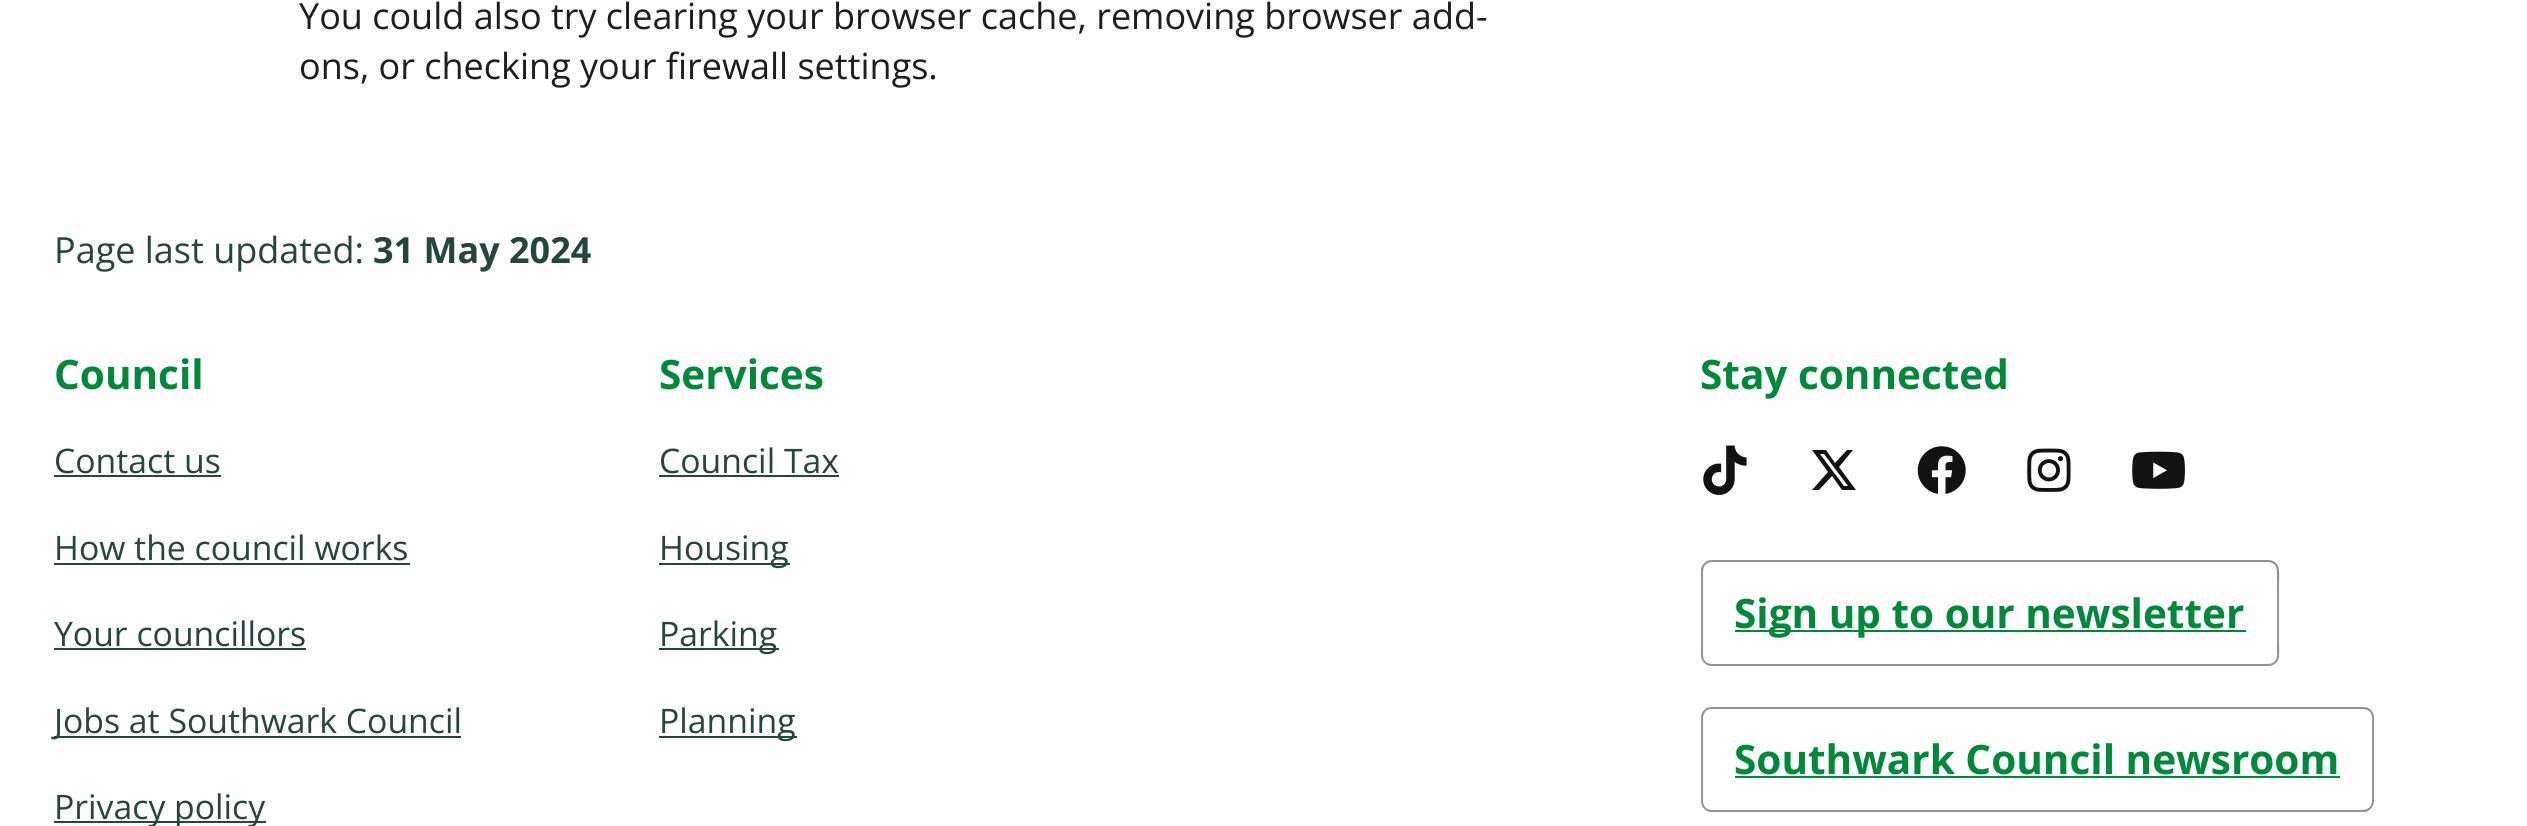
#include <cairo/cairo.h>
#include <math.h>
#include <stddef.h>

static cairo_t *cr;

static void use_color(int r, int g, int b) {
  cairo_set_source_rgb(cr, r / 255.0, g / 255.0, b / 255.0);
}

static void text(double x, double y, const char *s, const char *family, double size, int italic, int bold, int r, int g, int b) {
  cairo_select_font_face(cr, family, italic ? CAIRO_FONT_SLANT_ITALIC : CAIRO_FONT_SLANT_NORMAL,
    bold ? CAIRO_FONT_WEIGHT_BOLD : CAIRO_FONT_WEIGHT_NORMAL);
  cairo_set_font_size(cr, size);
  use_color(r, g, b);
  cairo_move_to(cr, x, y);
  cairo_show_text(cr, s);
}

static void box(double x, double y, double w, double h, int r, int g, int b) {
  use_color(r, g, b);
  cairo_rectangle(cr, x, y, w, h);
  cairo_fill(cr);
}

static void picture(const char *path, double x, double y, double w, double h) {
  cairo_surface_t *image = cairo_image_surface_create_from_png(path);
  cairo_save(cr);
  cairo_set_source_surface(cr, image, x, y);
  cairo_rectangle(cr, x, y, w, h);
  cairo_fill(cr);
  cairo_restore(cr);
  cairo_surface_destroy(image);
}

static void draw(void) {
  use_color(253, 253, 253);
  cairo_paint(cr);
  box(54, 475, 167, 2, 37, 70, 61);
  box(54, 563, 356, 2, 37, 70, 61);
  box(54, 648, 252, 2, 37, 70, 61);
  box(54, 736, 407, 2, 37, 70, 61);
  box(54, 821, 212, 2, 37, 70, 61);
  box(659, 475, 180, 2, 37, 70, 61);
  box(659, 563, 131, 2, 37, 70, 61);
  box(659, 648, 120, 2, 37, 70, 61);
  box(659, 736, 138, 2, 37, 70, 61);
  picture("img_01.png", 1703, 445, 44, 50);
  use_color(18, 18, 18);
  cairo_new_path(cr);
  cairo_move_to(cr, 1847, 450);
  cairo_line_to(cr, 1853, 450);
  cairo_line_to(cr, 1839, 467);
  cairo_line_to(cr, 1856, 490);
  cairo_line_to(cr, 1842, 490);
  cairo_line_to(cr, 1832, 476);
  cairo_line_to(cr, 1819, 490);
  cairo_line_to(cr, 1812, 490);
  cairo_line_to(cr, 1828, 472);
  cairo_line_to(cr, 1812, 450);
  cairo_line_to(cr, 1826, 450);
  cairo_line_to(cr, 1835, 463);
  cairo_close_path(cr);
  cairo_move_to(cr, 1844, 486);
  cairo_line_to(cr, 1848, 486);
  cairo_line_to(cr, 1824, 454);
  cairo_line_to(cr, 1820, 454);
  cairo_close_path(cr);
  cairo_fill(cr);
  picture("img_02.png", 1917, 446, 49, 48);
  picture("img_03.png", 2027, 448, 44, 44);
  picture("img_04.png", 2132, 451, 53, 38);
  use_color(147, 147, 147);
  cairo_new_path(cr);
  cairo_move_to(cr, 2266, 666);
  cairo_curve_to(cr, 2282, 666, 2279, 653, 2279, 641);
  cairo_line_to(cr, 2279, 585);
  cairo_curve_to(cr, 2279, 573, 2282, 560, 2266, 560);
  cairo_curve_to(cr, 2272, 560, 2277, 565, 2277, 572);
  cairo_line_to(cr, 2277, 655);
  cairo_curve_to(cr, 2277, 661, 2272, 666, 2266, 666);
  cairo_close_path(cr);
  cairo_fill(cr);
  cairo_new_path(cr);
  cairo_move_to(cr, 1712, 560);
  cairo_curve_to(cr, 1706, 560, 1701, 565, 1701, 571);
  cairo_line_to(cr, 1701, 655);
  cairo_curve_to(cr, 1701, 661, 1706, 666, 1712, 666);
  cairo_line_to(cr, 1714, 666);
  cairo_curve_to(cr, 1708, 666, 1703, 661, 1703, 655);
  cairo_line_to(cr, 1703, 572);
  cairo_curve_to(cr, 1703, 565, 1708, 560, 1714, 560);
  cairo_close_path(cr);
  cairo_fill(cr);
  cairo_new_path(cr);
  cairo_move_to(cr, 1701, 652);
  cairo_line_to(cr, 1701, 655);
  cairo_curve_to(cr, 1701, 661, 1706, 666, 1712, 666);
  cairo_line_to(cr, 2268, 666);
  cairo_curve_to(cr, 2274, 666, 2279, 661, 2279, 655);
  cairo_line_to(cr, 2279, 652);
  cairo_curve_to(cr, 2279, 659, 2274, 664, 2268, 664);
  cairo_line_to(cr, 1712, 664);
  cairo_curve_to(cr, 1706, 664, 1701, 659, 1701, 652);
  cairo_close_path(cr);
  cairo_fill(cr);
  cairo_new_path(cr);
  cairo_move_to(cr, 1712, 562);
  cairo_line_to(cr, 2268, 562);
  cairo_curve_to(cr, 2274, 562, 2279, 568, 2279, 574);
  cairo_line_to(cr, 2279, 571);
  cairo_curve_to(cr, 2279, 565, 2274, 560, 2268, 560);
  cairo_line_to(cr, 1712, 560);
  cairo_curve_to(cr, 1706, 560, 1701, 565, 1701, 571);
  cairo_line_to(cr, 1701, 574);
  cairo_curve_to(cr, 1701, 568, 1706, 562, 1712, 562);
  cairo_close_path(cr);
  cairo_fill(cr);
  box(1735, 630, 511, 2, 0, 136, 59);
  use_color(147, 147, 147);
  cairo_new_path(cr);
  cairo_move_to(cr, 2360, 812);
  cairo_line_to(cr, 2363, 812);
  cairo_curve_to(cr, 2369, 812, 2374, 807, 2374, 801);
  cairo_line_to(cr, 2374, 718);
  cairo_curve_to(cr, 2374, 712, 2370, 708, 2365, 707);
  cairo_curve_to(cr, 2369, 709, 2372, 714, 2372, 718);
  cairo_line_to(cr, 2372, 801);
  cairo_curve_to(cr, 2372, 807, 2366, 812, 2360, 812);
  cairo_close_path(cr);
  cairo_fill(cr);
  cairo_new_path(cr);
  cairo_move_to(cr, 1709, 707);
  cairo_curve_to(cr, 1704, 709, 1701, 713, 1701, 718);
  cairo_line_to(cr, 1701, 801);
  cairo_curve_to(cr, 1701, 807, 1706, 812, 1712, 812);
  cairo_line_to(cr, 1714, 812);
  cairo_curve_to(cr, 1708, 812, 1703, 807, 1703, 801);
  cairo_line_to(cr, 1703, 718);
  cairo_curve_to(cr, 1703, 714, 1706, 710, 1709, 707);
  cairo_close_path(cr);
  cairo_fill(cr);
  cairo_new_path(cr);
  cairo_move_to(cr, 1701, 799);
  cairo_curve_to(cr, 1701, 806, 1705, 812, 1712, 812);
  cairo_line_to(cr, 2363, 812);
  cairo_curve_to(cr, 2370, 812, 2374, 806, 2374, 799);
  cairo_curve_to(cr, 2374, 805, 2369, 810, 2362, 810);
  cairo_line_to(cr, 1712, 810);
  cairo_curve_to(cr, 1706, 810, 1701, 805, 1701, 799);
  cairo_close_path(cr);
  cairo_fill(cr);
  cairo_new_path(cr);
  cairo_move_to(cr, 1712, 709);
  cairo_line_to(cr, 2362, 709);
  cairo_curve_to(cr, 2369, 709, 2374, 714, 2374, 720);
  cairo_curve_to(cr, 2374, 713, 2370, 707, 2363, 707);
  cairo_line_to(cr, 1712, 707);
  cairo_curve_to(cr, 1705, 707, 1701, 713, 1701, 720);
  cairo_curve_to(cr, 1701, 714, 1706, 709, 1712, 709);
  cairo_close_path(cr);
  cairo_fill(cr);
  box(1735, 776, 605, 2, 0, 136, 59);
  text(299, 29, "You could also try clearing your browser cache, removing browser add-", "Open Sans", 36, 0, 0, 30, 30, 30);
  text(299, 79, "ons, or checking your firewall settings.", "Open Sans", 36, 0, 0, 30, 30, 30);
  text(54, 263, "Page last updated:", "Open Sans", 36, 0, 0, 37, 70, 61);
  text(373, 263, "31 May 2024", "Open Sans", 36, 0, 1, 37, 70, 61);
  text(54, 389, "Council", "Open Sans", 40.5, 0, 1, 0, 136, 59);
  text(54, 473, "Contact us", "Open Sans", 33.75, 0, 0, 37, 70, 61);
  text(54, 560, "How the council works", "Open Sans", 33.75, 0, 0, 37, 70, 61);
  text(54, 646, "Your councillors", "Open Sans", 33.75, 0, 0, 37, 70, 61);
  text(54, 733, "Jobs at Southwark Council", "Open Sans", 33.75, 0, 0, 37, 70, 61);
  text(54, 819, "Privacy policy", "Open Sans", 33.75, 0, 0, 37, 70, 61);
  text(659, 389, "Services", "Open Sans", 40.5, 0, 1, 0, 136, 59);
  text(659, 473, "Council Tax", "Open Sans", 33.75, 0, 0, 37, 70, 61);
  text(659, 560, "Housing", "Open Sans", 33.75, 0, 0, 37, 70, 61);
  text(659, 646, "Parking", "Open Sans", 33.75, 0, 0, 37, 70, 61);
  text(659, 733, "Planning", "Open Sans", 33.75, 0, 0, 37, 70, 61);
  text(1700, 389, "Stay connected", "Open Sans", 40.5, 0, 1, 0, 136, 59);
  text(1734, 628, "Sign up to our newsletter", "Open Sans", 40.5, 0, 1, 0, 136, 59);
  text(1734, 774, "Southwark Council newsroom", "Open Sans", 40.5, 0, 1, 0, 136, 59);
}

int main(void) {
  cairo_surface_t *surface = cairo_image_surface_create(CAIRO_FORMAT_RGB24, 2527, 826);
  cr = cairo_create(surface);
  cairo_font_options_t *options = cairo_font_options_create();
  cairo_font_options_set_hint_metrics(options, CAIRO_HINT_METRICS_OFF);
  cairo_font_options_set_hint_style(options, CAIRO_HINT_STYLE_NONE);
  cairo_set_font_options(cr, options);
  cairo_set_miter_limit(cr, 4);
  draw();
  cairo_surface_write_to_png(surface, "out.png");
  cairo_font_options_destroy(options);
  cairo_destroy(cr);
  cairo_surface_destroy(surface);
  return 0;
}
